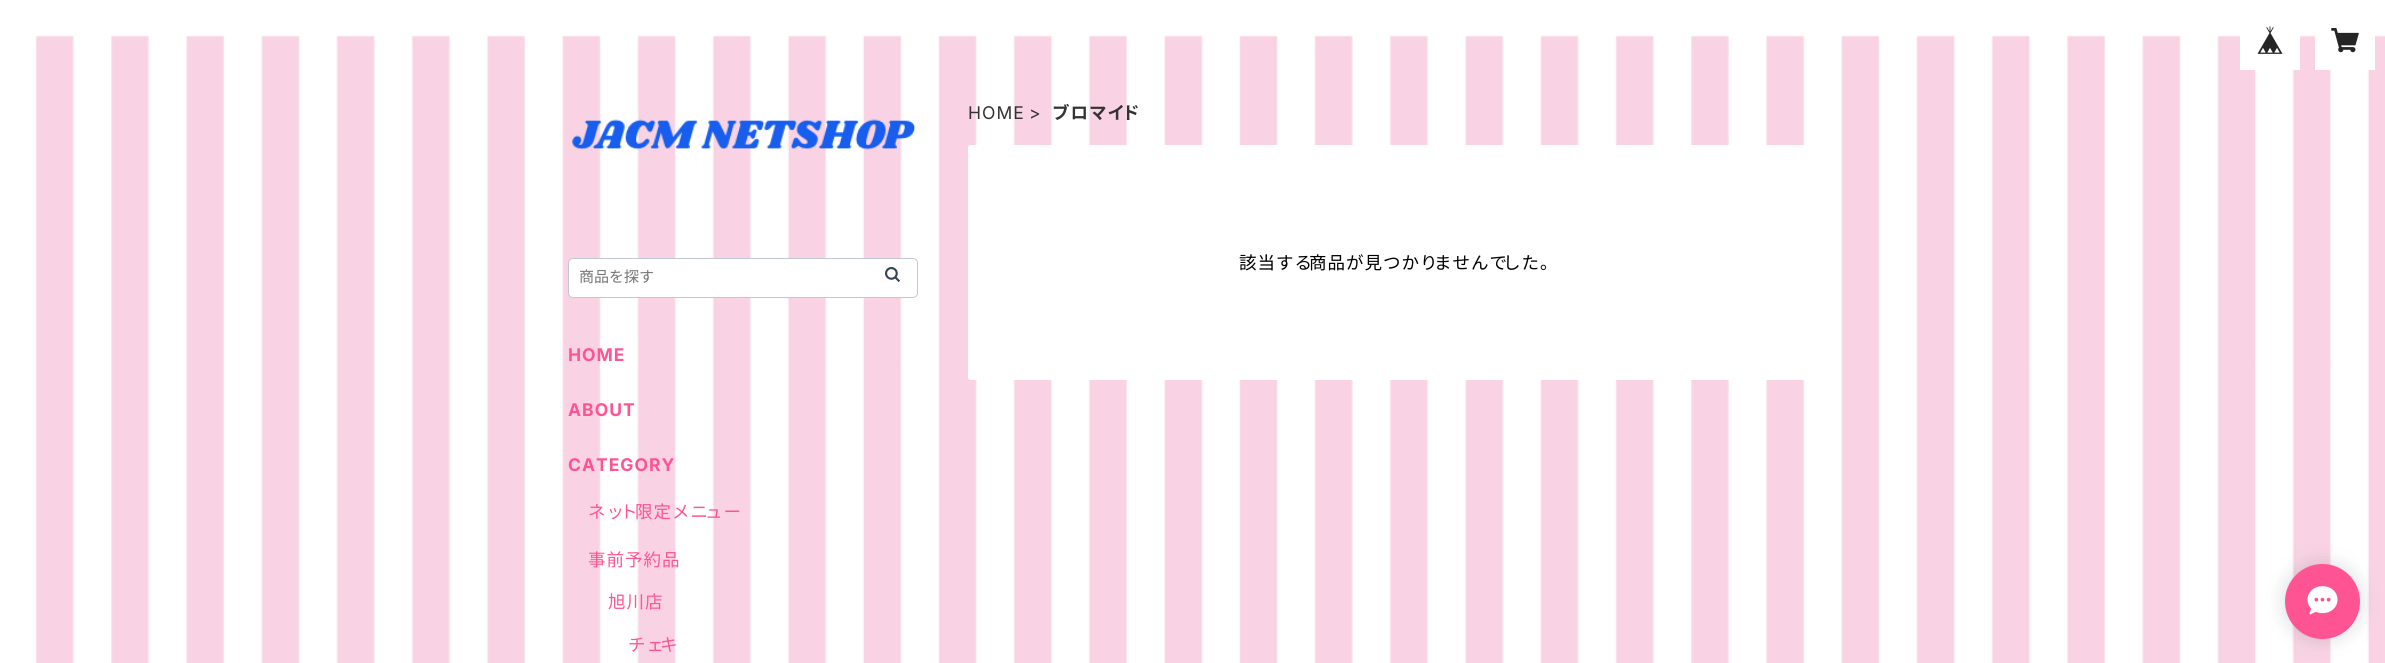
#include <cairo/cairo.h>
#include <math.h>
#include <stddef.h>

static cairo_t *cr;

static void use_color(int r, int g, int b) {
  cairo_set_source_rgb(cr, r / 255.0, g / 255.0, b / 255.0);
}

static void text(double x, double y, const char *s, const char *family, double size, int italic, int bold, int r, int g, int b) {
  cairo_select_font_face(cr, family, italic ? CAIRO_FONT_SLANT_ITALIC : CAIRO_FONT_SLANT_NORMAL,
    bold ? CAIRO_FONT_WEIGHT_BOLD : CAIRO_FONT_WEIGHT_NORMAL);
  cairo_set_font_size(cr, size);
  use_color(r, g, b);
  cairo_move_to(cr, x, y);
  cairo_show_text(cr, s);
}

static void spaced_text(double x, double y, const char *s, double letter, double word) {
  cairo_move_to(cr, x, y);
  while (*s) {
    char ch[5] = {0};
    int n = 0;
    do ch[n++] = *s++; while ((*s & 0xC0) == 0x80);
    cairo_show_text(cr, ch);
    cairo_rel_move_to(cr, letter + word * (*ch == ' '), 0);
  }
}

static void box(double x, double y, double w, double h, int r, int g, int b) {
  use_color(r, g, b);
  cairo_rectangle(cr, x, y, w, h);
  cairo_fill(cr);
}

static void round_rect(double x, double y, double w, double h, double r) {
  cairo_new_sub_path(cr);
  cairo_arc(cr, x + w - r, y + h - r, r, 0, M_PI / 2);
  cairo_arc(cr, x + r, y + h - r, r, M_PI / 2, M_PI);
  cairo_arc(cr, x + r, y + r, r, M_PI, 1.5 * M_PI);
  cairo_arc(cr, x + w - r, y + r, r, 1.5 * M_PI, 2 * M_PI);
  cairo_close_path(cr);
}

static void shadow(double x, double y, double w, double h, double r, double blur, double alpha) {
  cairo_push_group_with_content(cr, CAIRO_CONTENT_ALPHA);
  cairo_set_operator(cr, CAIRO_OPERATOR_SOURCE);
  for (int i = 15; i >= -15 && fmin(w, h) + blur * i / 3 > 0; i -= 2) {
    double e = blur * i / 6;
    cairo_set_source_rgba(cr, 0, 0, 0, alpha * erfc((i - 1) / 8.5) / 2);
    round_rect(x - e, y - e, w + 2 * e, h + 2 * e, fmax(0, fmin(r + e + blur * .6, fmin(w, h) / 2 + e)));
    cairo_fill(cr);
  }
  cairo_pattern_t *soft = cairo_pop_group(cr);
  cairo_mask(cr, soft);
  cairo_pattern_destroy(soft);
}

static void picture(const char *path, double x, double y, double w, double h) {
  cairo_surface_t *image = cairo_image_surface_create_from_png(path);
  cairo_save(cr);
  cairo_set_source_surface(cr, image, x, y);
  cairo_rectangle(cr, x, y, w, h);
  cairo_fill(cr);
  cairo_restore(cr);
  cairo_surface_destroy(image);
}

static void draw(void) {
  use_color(255, 255, 255);
  cairo_paint(cr);
  picture("img_01.png", 35, 35, 2350, 628);
  box(2240, 35, 60, 35, 255, 255, 255);
  picture("img_02.png", 2257, 26, 26, 28);
  box(2315, 35, 60, 35, 255, 255, 255);
  picture("img_03.png", 2331, 28, 28, 25);
  round_rect(968, 145, 850, 235, 2.5);
  cairo_fill(cr);
  picture("img_04.png", 572, 119, 344, 31);
  round_rect(568.5, 258.5, 349, 39, 4.5);
  cairo_fill_preserve(cr);
  use_color(194, 200, 210);
  cairo_set_line_width(cr, 1);
  cairo_stroke(cr);
  picture("img_05.png", 885, 267, 15, 15);
  use_color(51, 66, 88);
  shadow(2285, 564, 75, 75, 37.5, 9.5, 0.2);
  use_color(255, 84, 147);
  cairo_arc(cr, 2322.5, 601.5, 37.5, 0, 2 * M_PI);
  cairo_fill(cr);
  picture("img_06.png", 2307, 586, 31, 29);
  cairo_select_font_face(cr, "Inter", CAIRO_FONT_SLANT_NORMAL, CAIRO_FONT_WEIGHT_NORMAL);
  cairo_set_font_size(cr, 17.5);
  use_color(51, 51, 51);
  spaced_text(968, 119, "HOME", 1, 0);
  spaced_text(1029, 119, ">", 1, 0);
  cairo_select_font_face(cr, "Noto Sans JP", CAIRO_FONT_SLANT_NORMAL, CAIRO_FONT_WEIGHT_BOLD);
  spaced_text(1052, 119, "ブロマイ", 1, 0);
  spaced_text(1122, 119, "ド", 1, 0);
  cairo_select_font_face(cr, "Noto Sans JP", CAIRO_FONT_SLANT_NORMAL, CAIRO_FONT_WEIGHT_NORMAL);
  use_color(0, 0, 0);
  spaced_text(1239, 269, "該当する", 1, 0);
  spaced_text(1309, 269, "商品が見つかり", 1, 0);
  spaced_text(1434, 269, "ませんで", 1, 0);
  spaced_text(1503, 269, "した。", 1, 0);
  text(579, 282, "商品を探す", "Noto Sans JP", 15, 0, 0, 117, 117, 117);
  cairo_select_font_face(cr, "Inter", CAIRO_FONT_SLANT_NORMAL, CAIRO_FONT_WEIGHT_BOLD);
  cairo_set_font_size(cr, 17.5);
  use_color(255, 84, 147);
  spaced_text(568, 361, "HOME", 1, 0);
  spaced_text(568, 416, "ABOUT", 1, 0);
  spaced_text(568, 471, "CATEGORY", 1, 0);
  cairo_select_font_face(cr, "Noto Sans JP", CAIRO_FONT_SLANT_NORMAL, CAIRO_FONT_WEIGHT_NORMAL);
  spaced_text(588, 518, "ネッ", 1, 0);
  spaced_text(620, 518, "ト", 1, 0);
  spaced_text(635, 518, "限定メニ", 1, 0);
  spaced_text(705, 518, "ュー", 1, 0);
  spaced_text(588, 566, "事前予約品", 1, 0);
  spaced_text(608, 608, "旭川店", 1, 0);
  spaced_text(628, 651, "チェ", 1, 0);
  spaced_text(660, 651, "キ", 1, 0);
}

int main(void) {
  cairo_surface_t *surface = cairo_image_surface_create(CAIRO_FORMAT_RGB24, 2385, 663);
  cr = cairo_create(surface);
  cairo_font_options_t *options = cairo_font_options_create();
  cairo_font_options_set_hint_metrics(options, CAIRO_HINT_METRICS_OFF);
  cairo_font_options_set_hint_style(options, CAIRO_HINT_STYLE_NONE);
  cairo_set_font_options(cr, options);
  cairo_set_miter_limit(cr, 4);
  draw();
  cairo_surface_write_to_png(surface, "out.png");
  cairo_font_options_destroy(options);
  cairo_destroy(cr);
  cairo_surface_destroy(surface);
  return 0;
}
